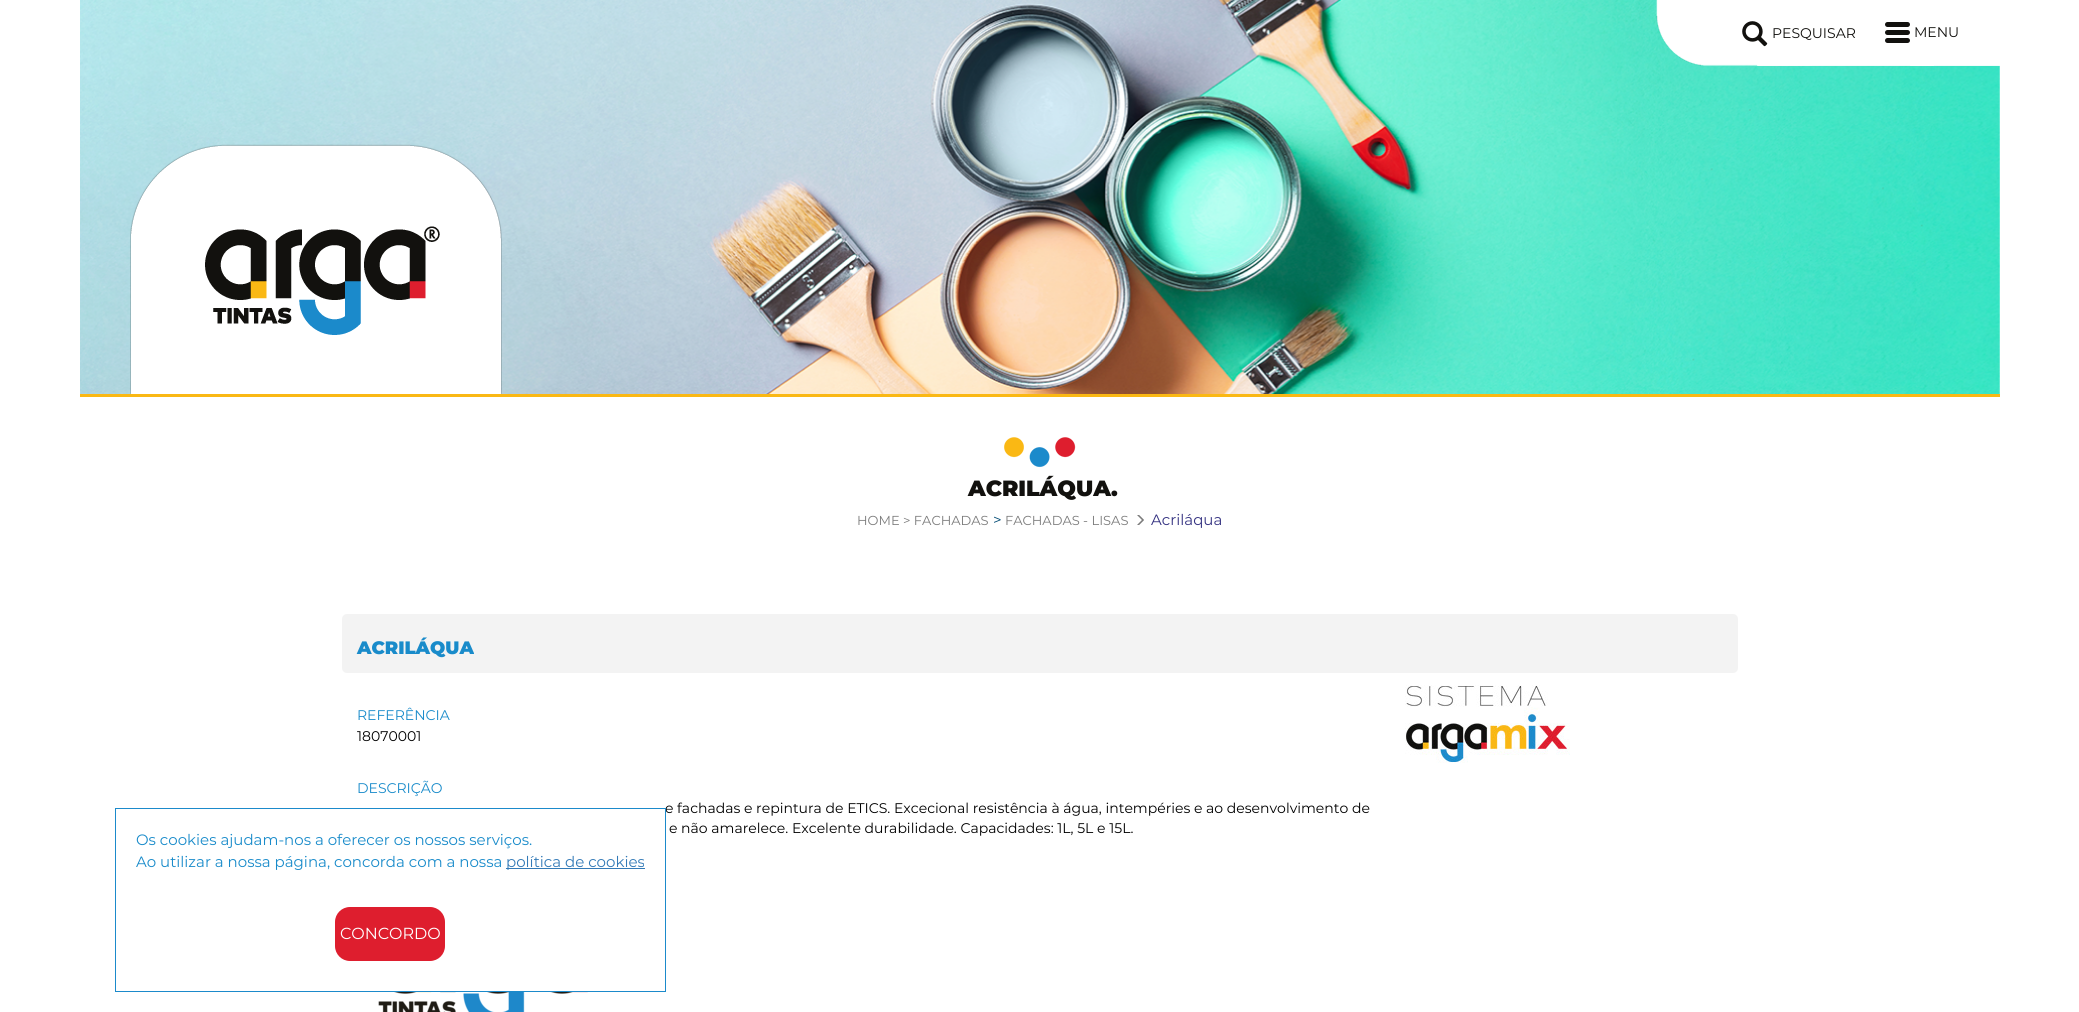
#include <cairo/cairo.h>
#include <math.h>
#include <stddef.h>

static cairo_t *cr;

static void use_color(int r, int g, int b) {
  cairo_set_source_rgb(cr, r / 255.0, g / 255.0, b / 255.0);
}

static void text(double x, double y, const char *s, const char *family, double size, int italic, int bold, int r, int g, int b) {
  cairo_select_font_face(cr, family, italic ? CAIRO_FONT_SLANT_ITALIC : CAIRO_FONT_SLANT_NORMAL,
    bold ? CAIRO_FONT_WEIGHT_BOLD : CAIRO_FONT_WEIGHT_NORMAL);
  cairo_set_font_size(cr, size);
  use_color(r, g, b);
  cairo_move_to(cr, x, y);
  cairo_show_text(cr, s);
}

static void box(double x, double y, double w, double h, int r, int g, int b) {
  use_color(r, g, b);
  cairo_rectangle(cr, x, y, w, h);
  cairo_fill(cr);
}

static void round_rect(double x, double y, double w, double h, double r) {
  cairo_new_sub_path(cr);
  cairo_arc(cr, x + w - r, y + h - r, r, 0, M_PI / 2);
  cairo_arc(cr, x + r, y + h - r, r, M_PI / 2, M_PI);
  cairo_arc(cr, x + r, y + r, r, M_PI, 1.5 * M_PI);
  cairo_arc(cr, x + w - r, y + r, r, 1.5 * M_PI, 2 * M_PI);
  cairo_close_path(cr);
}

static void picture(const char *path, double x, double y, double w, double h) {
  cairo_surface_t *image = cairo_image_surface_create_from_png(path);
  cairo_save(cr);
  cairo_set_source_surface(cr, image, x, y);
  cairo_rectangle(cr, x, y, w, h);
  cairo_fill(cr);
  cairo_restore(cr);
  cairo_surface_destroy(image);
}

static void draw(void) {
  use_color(255, 255, 255);
  cairo_paint(cr);
  box(80, 394, 1920, 3, 250, 184, 20);
  picture("img_01.png", 80, 0, 1920, 394);
  picture("img_02.png", 130, 144, 372, 250);
  picture("img_03.png", 1656, 0, 344, 66);
  picture("img_04.png", 1742, 21, 26, 26);
  use_color(18, 17, 14);
  round_rect(1885, 22, 25, 5, 2.5);
  cairo_fill(cr);
  round_rect(1885, 30, 25, 5, 2.5);
  cairo_fill(cr);
  round_rect(1885, 38, 25, 5, 2.5);
  cairo_fill(cr);
  picture("img_05.png", 1004, 437, 72, 31);
  picture("img_06.png", 1137, 515, 7, 10);
  use_color(243, 243, 243);
  round_rect(342, 614, 1396, 59, 5);
  cairo_fill(cr);
  picture("img_07.png", 378, 992, 210, 20);
  picture("img_08.png", 1405, 685, 165, 78);
  text(1772, 38, "PESQUISAR", "Montserrat", 14, 0, 0, 18, 17, 14);
  text(1914, 37, "MENU", "Montserrat", 14, 0, 0, 18, 17, 14);
  text(968, 496, "ACRILÁQUA.", "Montserrat Black", 22, 0, 0, 18, 17, 14);
  text(857, 525, "HOME > FACHADAS", "Montserrat", 13, 0, 0, 123, 123, 123);
  text(993, 525, ">", "Montserrat", 15, 0, 0, 0, 74, 115);
  text(1005, 525, "FACHADAS - LISAS", "Montserrat", 13, 0, 0, 123, 123, 123);
  text(1151, 525, "Acriláqua", "Montserrat", 15, 0, 0, 52, 50, 129);
  text(357, 654, "ACRILÁQUA", "Montserrat Black", 18, 0, 0, 25, 139, 202);
  text(357, 720, "REFERÊNCIA", "Montserrat", 14, 0, 0, 25, 139, 202);
  text(357, 741, "18070001", "Montserrat", 14, 0, 0, 0, 0, 0);
  text(357, 793, "DESCRIÇÃO", "Montserrat", 14, 0, 0, 25, 139, 202);
  text(665, 813, "e fachadas e repintura de ETICS. Excecional resistência à água, intempéries e ao desenvolvimento de", "Montserrat", 14, 0, 0, 0, 0, 0);
  text(669, 833, "e não amarelece. Excelente durabilidade. Capacidades: 1L, 5L e 15L.", "Montserrat", 14, 0, 0, 0, 0, 0);
  cairo_rectangle(cr, 115.5, 808.5, 550, 183);
  use_color(27, 138, 203);
  cairo_set_line_width(cr, 1);
  cairo_stroke(cr);
  text(136, 845, "Os cookies ajudam-nos a oferecer os nossos serviços.", "Montserrat", 15, 0, 0, 25, 139, 202);
  text(136, 867, "Ao utilizar a nossa página, concorda com a nossa", "Montserrat", 15, 0, 0, 25, 139, 202);
  box(506, 868, 139, 1, 51, 122, 183);
  text(506, 867, "política de cookies", "Montserrat", 15, 0, 0, 51, 122, 183);
  use_color(222, 30, 46);
  round_rect(335, 907, 110, 54, 15);
  cairo_fill(cr);
  text(340, 939, "CONCORDO", "Montserrat", 16, 0, 0, 255, 255, 255);
}

int main(void) {
  cairo_surface_t *surface = cairo_image_surface_create(CAIRO_FORMAT_RGB24, 2079, 1012);
  cr = cairo_create(surface);
  cairo_font_options_t *options = cairo_font_options_create();
  cairo_font_options_set_hint_metrics(options, CAIRO_HINT_METRICS_OFF);
  cairo_font_options_set_hint_style(options, CAIRO_HINT_STYLE_NONE);
  cairo_set_font_options(cr, options);
  cairo_set_miter_limit(cr, 4);
  draw();
  cairo_surface_write_to_png(surface, "out.png");
  cairo_font_options_destroy(options);
  cairo_destroy(cr);
  cairo_surface_destroy(surface);
  return 0;
}
